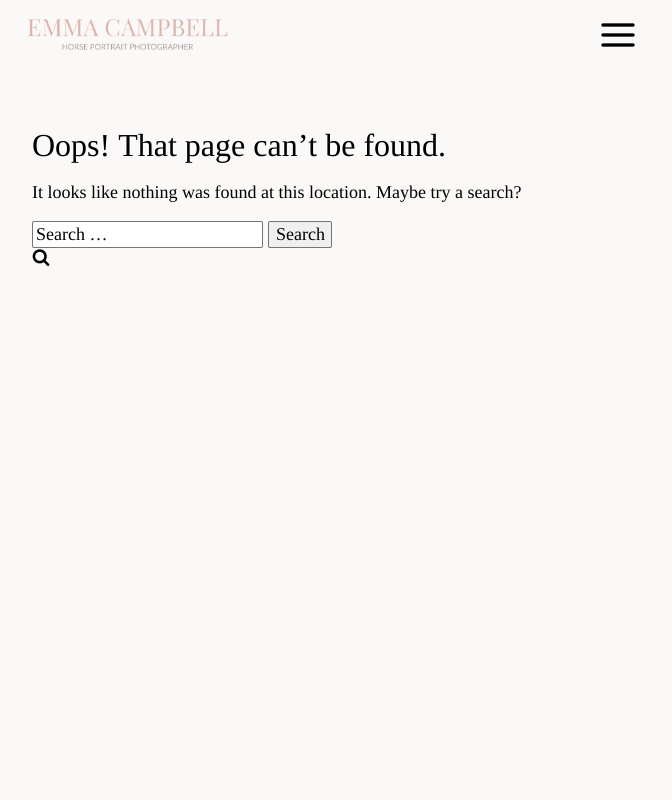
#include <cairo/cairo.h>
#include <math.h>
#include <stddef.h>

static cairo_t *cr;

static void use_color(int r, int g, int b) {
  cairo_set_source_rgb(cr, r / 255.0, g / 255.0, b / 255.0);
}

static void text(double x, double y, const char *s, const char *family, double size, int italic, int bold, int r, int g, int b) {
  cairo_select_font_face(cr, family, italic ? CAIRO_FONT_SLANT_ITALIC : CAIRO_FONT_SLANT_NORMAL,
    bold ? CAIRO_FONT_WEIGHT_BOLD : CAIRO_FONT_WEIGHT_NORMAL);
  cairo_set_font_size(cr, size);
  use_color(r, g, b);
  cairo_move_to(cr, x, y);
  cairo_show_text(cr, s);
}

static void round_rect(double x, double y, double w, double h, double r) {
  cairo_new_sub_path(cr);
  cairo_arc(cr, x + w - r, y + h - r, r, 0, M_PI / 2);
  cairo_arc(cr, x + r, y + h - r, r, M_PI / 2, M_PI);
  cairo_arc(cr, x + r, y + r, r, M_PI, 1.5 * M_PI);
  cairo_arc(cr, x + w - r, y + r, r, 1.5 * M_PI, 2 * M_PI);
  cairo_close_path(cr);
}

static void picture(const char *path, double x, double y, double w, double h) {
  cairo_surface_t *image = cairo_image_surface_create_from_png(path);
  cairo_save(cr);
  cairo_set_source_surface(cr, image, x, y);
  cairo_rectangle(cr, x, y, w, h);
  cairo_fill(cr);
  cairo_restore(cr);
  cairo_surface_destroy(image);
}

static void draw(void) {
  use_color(251, 249, 247);
  cairo_paint(cr);
  picture("img_01.png", 28, 19, 200, 31);
  picture("img_02.png", 601, 23, 34, 24);
  use_color(255, 255, 255);
  round_rect(32.5, 221.5, 230, 26, 1.5);
  cairo_fill_preserve(cr);
  use_color(118, 118, 118);
  cairo_set_line_width(cr, 1);
  cairo_stroke(cr);
  use_color(239, 239, 239);
  round_rect(268.5, 221.5, 63, 26, 1.5);
  cairo_fill_preserve(cr);
  use_color(118, 118, 118);
  cairo_stroke(cr);
  picture("img_03.png", 32, 249, 18, 17);
  text(32, 156, "Oops! That page can’t be found.", "Liberation Serif", 32, 0, 0, 0, 0, 0);
  text(32, 198, "It looks like nothing was found at this location. Maybe try a search?", "Liberation Serif", 18, 0, 0, 0, 0, 0);
  text(36, 240, "Search …", "Liberation Serif", 18, 0, 0, 0, 0, 0);
  text(276, 240, "Search", "Liberation Serif", 18, 0, 0, 0, 0, 0);
}

int main(void) {
  cairo_surface_t *surface = cairo_image_surface_create(CAIRO_FORMAT_RGB24, 672, 800);
  cr = cairo_create(surface);
  cairo_font_options_t *options = cairo_font_options_create();
  cairo_font_options_set_hint_metrics(options, CAIRO_HINT_METRICS_OFF);
  cairo_font_options_set_hint_style(options, CAIRO_HINT_STYLE_NONE);
  cairo_set_font_options(cr, options);
  cairo_set_miter_limit(cr, 4);
  draw();
  cairo_surface_write_to_png(surface, "out.png");
  cairo_font_options_destroy(options);
  cairo_destroy(cr);
  cairo_surface_destroy(surface);
  return 0;
}
